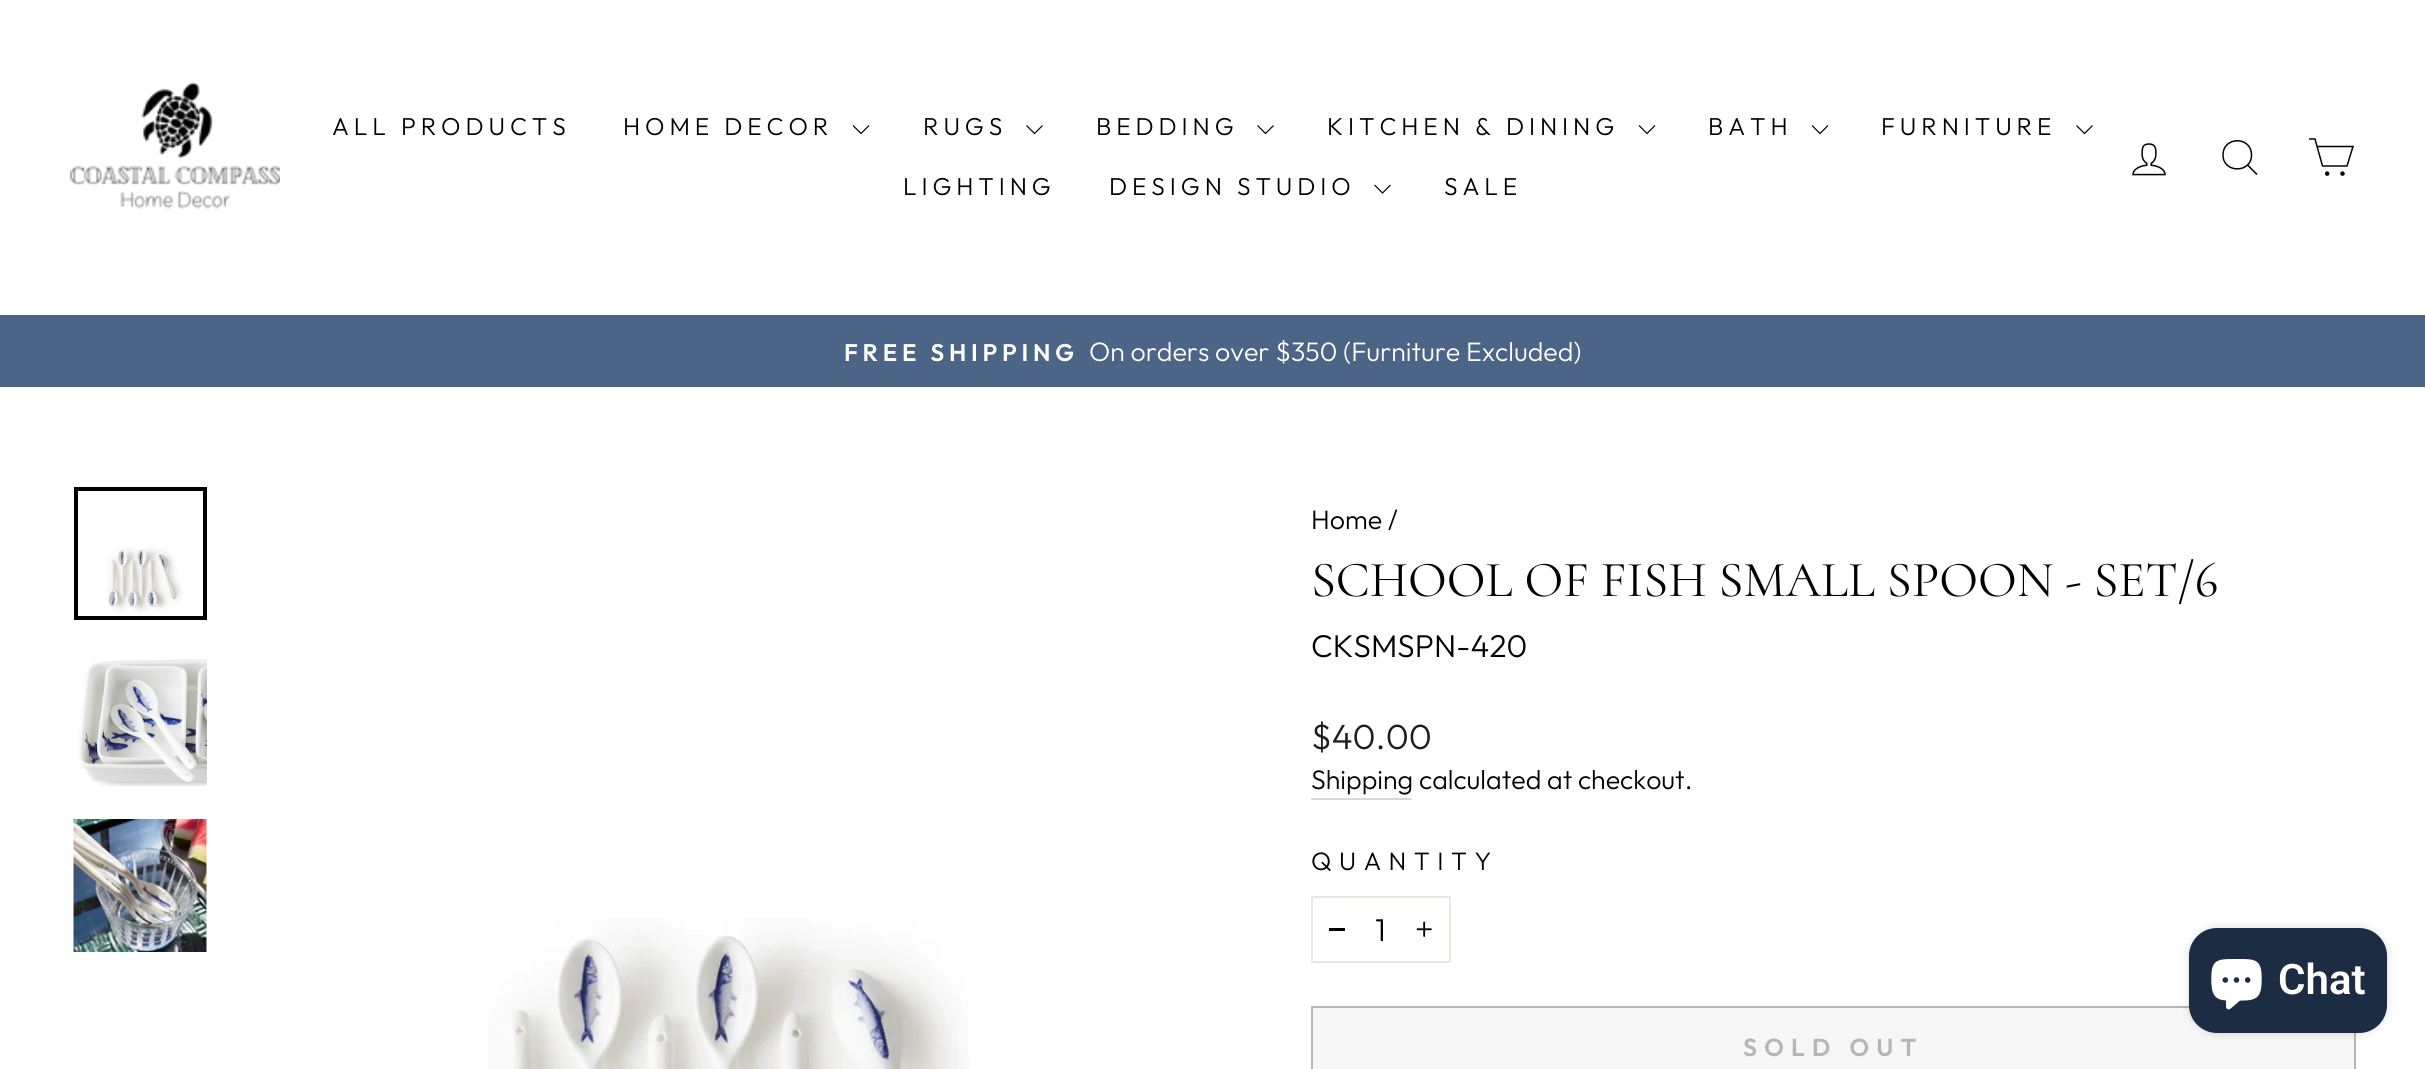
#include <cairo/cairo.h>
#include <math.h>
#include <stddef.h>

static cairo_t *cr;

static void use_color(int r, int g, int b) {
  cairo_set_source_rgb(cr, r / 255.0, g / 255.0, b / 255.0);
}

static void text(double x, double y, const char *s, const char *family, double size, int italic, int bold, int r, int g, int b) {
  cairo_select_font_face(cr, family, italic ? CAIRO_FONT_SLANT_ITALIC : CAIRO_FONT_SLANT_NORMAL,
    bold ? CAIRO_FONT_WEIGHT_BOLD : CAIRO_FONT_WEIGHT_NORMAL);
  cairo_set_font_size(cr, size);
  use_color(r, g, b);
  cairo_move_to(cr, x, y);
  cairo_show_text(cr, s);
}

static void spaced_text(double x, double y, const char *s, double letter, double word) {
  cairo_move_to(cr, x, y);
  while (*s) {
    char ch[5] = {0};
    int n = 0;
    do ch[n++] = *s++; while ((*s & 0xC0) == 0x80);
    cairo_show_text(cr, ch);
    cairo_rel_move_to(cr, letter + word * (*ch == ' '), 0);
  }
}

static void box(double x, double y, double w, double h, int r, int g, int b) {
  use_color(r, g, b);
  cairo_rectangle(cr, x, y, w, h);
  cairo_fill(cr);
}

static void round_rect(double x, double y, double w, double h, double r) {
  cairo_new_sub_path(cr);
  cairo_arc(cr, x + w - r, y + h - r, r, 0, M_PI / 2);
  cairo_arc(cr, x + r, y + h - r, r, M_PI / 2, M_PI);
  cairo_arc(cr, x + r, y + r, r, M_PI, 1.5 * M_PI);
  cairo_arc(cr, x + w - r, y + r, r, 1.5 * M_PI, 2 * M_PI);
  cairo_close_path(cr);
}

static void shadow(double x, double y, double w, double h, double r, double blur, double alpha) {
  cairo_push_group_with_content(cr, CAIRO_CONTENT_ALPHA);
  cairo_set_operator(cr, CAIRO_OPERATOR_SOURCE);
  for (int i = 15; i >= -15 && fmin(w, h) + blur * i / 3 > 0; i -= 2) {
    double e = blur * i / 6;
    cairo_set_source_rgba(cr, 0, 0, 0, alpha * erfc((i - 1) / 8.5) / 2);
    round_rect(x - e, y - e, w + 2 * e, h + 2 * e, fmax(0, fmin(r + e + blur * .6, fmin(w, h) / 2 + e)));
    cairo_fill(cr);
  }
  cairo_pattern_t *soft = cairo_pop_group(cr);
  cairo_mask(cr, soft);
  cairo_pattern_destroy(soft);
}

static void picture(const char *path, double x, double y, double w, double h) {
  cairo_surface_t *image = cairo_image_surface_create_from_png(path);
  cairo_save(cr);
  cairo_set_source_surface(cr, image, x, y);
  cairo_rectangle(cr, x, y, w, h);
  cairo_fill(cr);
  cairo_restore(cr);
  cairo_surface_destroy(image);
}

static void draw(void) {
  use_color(255, 255, 255);
  cairo_paint(cr);
  picture("img_01.png", 70, 82, 210, 127);
  cairo_new_path(cr);
  cairo_move_to(cr, 853, 125.5);
  cairo_line_to(cr, 861, 133.5);
  cairo_line_to(cr, 869, 125.5);
  use_color(0, 0, 0);
  cairo_set_line_width(cr, 1.2);
  cairo_stroke(cr);
  cairo_new_path(cr);
  cairo_move_to(cr, 1026.5, 125.5);
  cairo_line_to(cr, 1034.5, 133.5);
  cairo_line_to(cr, 1042.5, 125.5);
  cairo_stroke(cr);
  cairo_new_path(cr);
  cairo_move_to(cr, 1257.5, 125.5);
  cairo_line_to(cr, 1265.5, 133.5);
  cairo_line_to(cr, 1273.5, 125.5);
  cairo_stroke(cr);
  cairo_new_path(cr);
  cairo_move_to(cr, 1639, 125.5);
  cairo_line_to(cr, 1647, 133.5);
  cairo_line_to(cr, 1655, 125.5);
  cairo_stroke(cr);
  cairo_new_path(cr);
  cairo_move_to(cr, 1812, 125.5);
  cairo_line_to(cr, 1820, 133.5);
  cairo_line_to(cr, 1828, 125.5);
  cairo_stroke(cr);
  cairo_new_path(cr);
  cairo_move_to(cr, 2076.5, 125.5);
  cairo_line_to(cr, 2084.5, 133.5);
  cairo_line_to(cr, 2092.5, 125.5);
  cairo_stroke(cr);
  cairo_new_path(cr);
  cairo_move_to(cr, 1374.5, 185);
  cairo_line_to(cr, 1382.5, 193);
  cairo_line_to(cr, 1390.5, 185);
  cairo_stroke(cr);
  picture("img_02.png", 2132, 143, 34, 33);
  cairo_new_path(cr);
  cairo_move_to(cr, 2251.5, 155);
  cairo_curve_to(cr, 2251.5, 173.5, 2223, 173.5, 2223, 155);
  cairo_curve_to(cr, 2223, 136, 2251.5, 136, 2251.5, 155);
  cairo_close_path(cr);
  cairo_move_to(cr, 2257, 174.5);
  cairo_line_to(cr, 2247.5, 165);
  cairo_set_line_width(cr, 1.5);
  cairo_stroke(cr);
  cairo_new_path(cr);
  cairo_move_to(cr, 2317, 146.5);
  cairo_line_to(cr, 2353, 146.5);
  cairo_line_to(cr, 2347, 166);
  cairo_line_to(cr, 2322.5, 166);
  cairo_line_to(cr, 2315, 139);
  cairo_line_to(cr, 2309, 139);
  cairo_stroke(cr);
  cairo_arc(cr, 2327.2, 173.6, 1.5, 0, 2 * M_PI);
  cairo_fill_preserve(cr);
  cairo_stroke(cr);
  cairo_arc(cr, 2342.5, 173.6, 1.5, 0, 2 * M_PI);
  cairo_fill_preserve(cr);
  cairo_stroke(cr);
  box(0, 315, 2425, 72, 76, 100, 134);
  picture("img_03.png", 107, 547, 75, 66);
  cairo_rectangle(cr, 76, 489, 129, 129);
  use_color(0, 0, 0);
  cairo_set_line_width(cr, 4);
  cairo_stroke(cr);
  picture("img_04.png", 78, 659, 129, 127);
  picture("img_05.png", 73, 819, 134, 133);
  picture("img_06.png", 488, 918, 481, 151);
  box(1311, 798, 101, 2, 217, 217, 217);
  cairo_rectangle(cr, 1312, 897, 138, 65);
  use_color(232, 232, 225);
  cairo_set_line_width(cr, 2);
  cairo_stroke(cr);
  box(1329, 928, 16, 3, 0, 0, 0);
  picture("img_07.png", 1416, 921, 16, 16);
  use_color(246, 246, 246);
  cairo_rectangle(cr, 1312, 1007, 1043, 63);
  cairo_fill_preserve(cr);
  use_color(182, 182, 182);
  cairo_stroke(cr);
  use_color(0, 0, 0);
  shadow(2189, 928, 198, 105, 28, 4.5, 0.15);
  use_color(28, 44, 67);
  round_rect(2189, 928, 198, 105, 28);
  cairo_fill(cr);
  picture("img_08.png", 2211, 959, 51, 51);
  cairo_select_font_face(cr, "Outfit Light", CAIRO_FONT_SLANT_NORMAL, CAIRO_FONT_WEIGHT_NORMAL);
  cairo_set_font_size(cr, 24.5);
  use_color(0, 0, 0);
  spaced_text(332, 135, "ALL PRODUCTS", 4.9, 0);
  spaced_text(623, 135, "HOME DECOR", 4.9, 0);
  spaced_text(923, 135, "RUGS", 4.9, 0);
  spaced_text(1096, 135, "BEDDING", 4.9, 0);
  spaced_text(1327, 135, "KITCHEN & DINING", 4.9, 0);
  spaced_text(1708, 135, "BATH", 4.9, 0);
  spaced_text(1881, 135, "FURNITURE", 4.9, 0);
  spaced_text(903, 195, "LIGHTING", 4.9, 0);
  spaced_text(1109, 195, "DESIGN STUDIO", 4.9, 0);
  spaced_text(1444, 195, "SALE", 4.9, 0);
  cairo_select_font_face(cr, "Outfit SemiBold", CAIRO_FONT_SLANT_NORMAL, CAIRO_FONT_WEIGHT_NORMAL);
  cairo_set_font_size(cr, 24);
  use_color(255, 255, 255);
  spaced_text(844, 361, "FREE SHIPPING", 4.75, 0);
  text(1089, 361, "On orders over $350 (Furniture Excluded)", "Outfit Light", 26.75, 0, 0, 255, 255, 255);
  text(1311, 529, "Home /", "Outfit Light", 26.75, 0, 0, 0, 0, 0);
  text(1311, 596, "SCHOOL OF FISH SMALL SPOON - SET/6", "Cormorant", 50.6, 0, 0, 0, 0, 0);
  text(1311, 657, "CKSMSPN-420", "Outfit Light", 31.5, 0, 0, 0, 0, 0);
  text(1311, 749, "$40.00", "Outfit Light", 35, 0, 0, 28, 29, 29);
  text(1311, 789, "Shipping", "Outfit Light", 26.75, 0, 0, 0, 0, 0);
  text(1419, 789, "calculated at checkout.", "Outfit Light", 26.75, 0, 0, 0, 0, 0);
  cairo_set_font_size(cr, 25.25);
  spaced_text(1311, 870, "QUANTITY", 7.5, 0);
  text(1375, 941, "1", "Outfit Light", 31.5, 0, 0, 0, 0, 0);
  cairo_select_font_face(cr, "Outfit SemiBold", CAIRO_FONT_SLANT_NORMAL, CAIRO_FONT_WEIGHT_NORMAL);
  cairo_set_font_size(cr, 24.5);
  use_color(182, 182, 182);
  spaced_text(1743, 1056, "SOLD OUT", 7.25, 0);
  text(2278, 994, "Chat", "Roboto SemiBold", 42, 0, 0, 255, 255, 255);
}

int main(void) {
  cairo_surface_t *surface = cairo_image_surface_create(CAIRO_FORMAT_RGB24, 2425, 1069);
  cr = cairo_create(surface);
  cairo_font_options_t *options = cairo_font_options_create();
  cairo_font_options_set_hint_metrics(options, CAIRO_HINT_METRICS_OFF);
  cairo_font_options_set_hint_style(options, CAIRO_HINT_STYLE_NONE);
  cairo_set_font_options(cr, options);
  cairo_set_miter_limit(cr, 4);
  draw();
  cairo_surface_write_to_png(surface, "out.png");
  cairo_font_options_destroy(options);
  cairo_destroy(cr);
  cairo_surface_destroy(surface);
  return 0;
}
